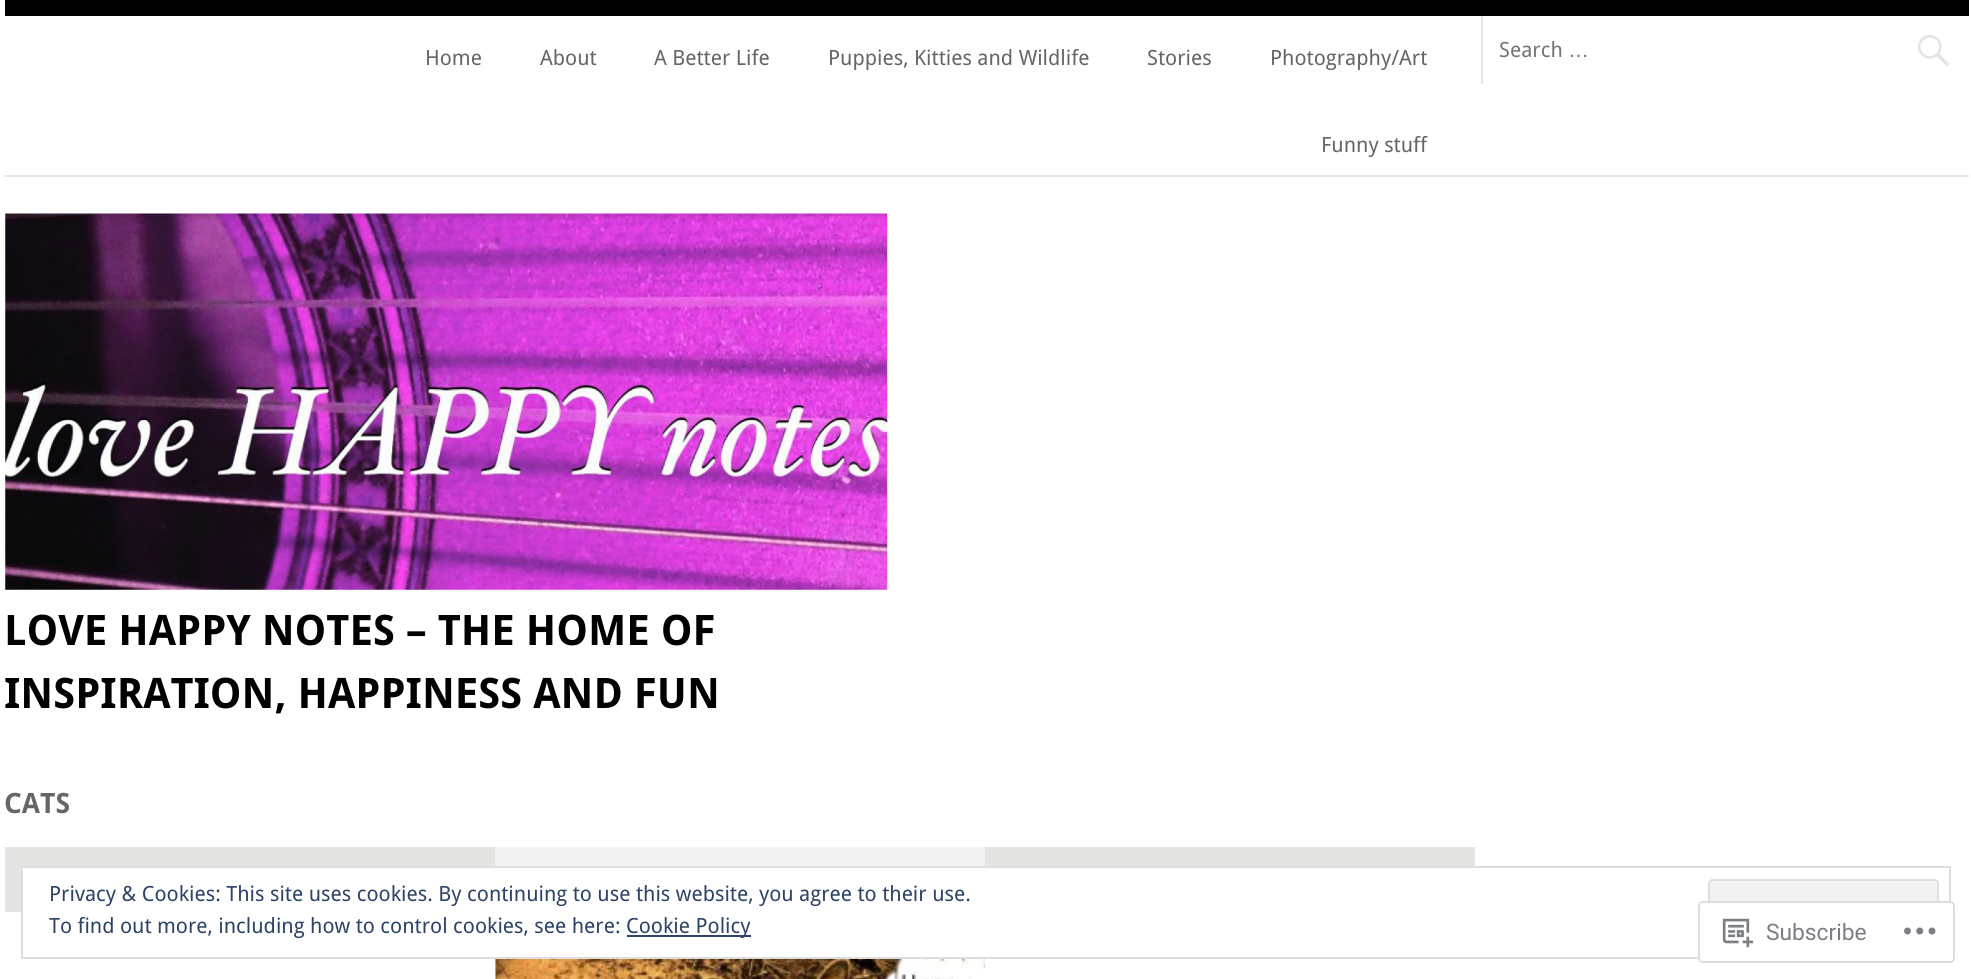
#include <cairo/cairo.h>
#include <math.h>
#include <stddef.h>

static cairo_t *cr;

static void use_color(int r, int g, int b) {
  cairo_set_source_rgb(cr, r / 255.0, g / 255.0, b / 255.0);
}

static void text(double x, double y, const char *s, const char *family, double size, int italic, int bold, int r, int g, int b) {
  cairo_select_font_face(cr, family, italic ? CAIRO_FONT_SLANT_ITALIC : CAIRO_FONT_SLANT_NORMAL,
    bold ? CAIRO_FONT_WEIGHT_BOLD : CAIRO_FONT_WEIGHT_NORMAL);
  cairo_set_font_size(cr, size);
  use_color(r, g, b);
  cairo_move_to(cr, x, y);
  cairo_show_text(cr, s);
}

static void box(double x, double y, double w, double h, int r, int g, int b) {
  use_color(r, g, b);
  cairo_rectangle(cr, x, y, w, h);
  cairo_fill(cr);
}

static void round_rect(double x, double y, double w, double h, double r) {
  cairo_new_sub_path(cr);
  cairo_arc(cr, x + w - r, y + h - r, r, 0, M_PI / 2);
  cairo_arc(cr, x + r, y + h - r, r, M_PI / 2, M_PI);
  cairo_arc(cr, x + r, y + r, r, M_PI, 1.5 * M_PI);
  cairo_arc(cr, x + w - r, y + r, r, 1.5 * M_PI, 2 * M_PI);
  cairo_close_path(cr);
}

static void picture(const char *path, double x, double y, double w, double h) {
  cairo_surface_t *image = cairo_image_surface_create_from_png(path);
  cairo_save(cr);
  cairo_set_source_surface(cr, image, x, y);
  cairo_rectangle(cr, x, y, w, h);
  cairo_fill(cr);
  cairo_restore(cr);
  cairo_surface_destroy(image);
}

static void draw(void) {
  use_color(255, 255, 255);
  cairo_paint(cr);
  box(5, 0, 1964, 16, 0, 0, 0);
  box(5, 175, 1964, 2, 228, 228, 226);
  box(1481, 16, 2, 68, 228, 228, 226);
  picture("img_01.png", 1918, 35, 32, 32);
  picture("img_02.png", 5, 213, 883, 377);
  box(5, 847, 490, 65, 228, 228, 226);
  box(495, 847, 490, 19, 243, 243, 243);
  picture("img_03.png", 495, 959, 491, 20);
  box(985, 847, 490, 19, 228, 228, 226);
  box(23, 868, 472, 44, 255, 255, 255);
  cairo_rectangle(cr, 22, 867, 1928, 91);
  use_color(222, 222, 222);
  cairo_stroke(cr);
  use_color(243, 243, 243);
  round_rect(1708, 879, 231, 68, 5);
  cairo_fill(cr);
  use_color(249, 249, 249);
  cairo_new_path(cr);
  cairo_move_to(cr, 1713, 882);
  cairo_line_to(cr, 1934, 882);
  cairo_curve_to(cr, 1936, 882, 1937, 884, 1937, 886);
  cairo_curve_to(cr, 1937, 883, 1937, 881, 1934, 880);
  cairo_line_to(cr, 1714, 880);
  cairo_curve_to(cr, 1710, 880, 1710, 883, 1710, 886);
  cairo_curve_to(cr, 1710, 884, 1711, 882, 1713, 882);
  cairo_close_path(cr);
  cairo_fill(cr);
  round_rect(1709, 880, 229, 66, 4);
  use_color(222, 222, 222);
  cairo_stroke(cr);
  box(627, 935, 124, 2, 46, 68, 103);
  cairo_set_source_rgba(cr, 1, 1, 1, 0.98);
  round_rect(1698, 901, 257, 62, 5);
  cairo_fill(cr);
  round_rect(1699, 902, 255, 60, 4);
  cairo_set_source_rgba(cr, 0.863, 0.863, 0.871, 0.98);
  cairo_stroke(cr);
  picture("img_04.png", 1722, 918, 32, 30);
  picture("img_05.png", 1904, 927, 32, 8);
  text(425, 65, "Home", "Droid Sans", 21, 0, 0, 102, 102, 102);
  text(540, 65, "About", "Droid Sans", 21, 0, 0, 102, 102, 102);
  text(654, 65, "A Better Life", "Droid Sans", 21, 0, 0, 102, 102, 102);
  text(828, 65, "Puppies, Kitties and Wildlife", "Droid Sans", 21, 0, 0, 102, 102, 102);
  text(1147, 65, "Stories", "Droid Sans", 21, 0, 0, 102, 102, 102);
  text(1270, 65, "Photography/Art", "Droid Sans", 21, 0, 0, 102, 102, 102);
  text(1321, 152, "Funny stuff", "Droid Sans", 21, 0, 0, 102, 102, 102);
  text(1499, 57, "Search", "Droid Sans", 21, 0, 0, 117, 117, 117);
  text(1568, 57, "…", "Liberation Sans", 21, 0, 0, 117, 117, 117);
  text(4, 645, "LOVE HAPPY NOTES – THE HOME OF", "Droid Sans", 42, 0, 1, 0, 0, 0);
  text(4, 708, "INSPIRATION, HAPPINESS AND FUN", "Droid Sans", 42, 0, 1, 0, 0, 0);
  text(4, 813, "CATS", "Droid Sans", 28, 0, 1, 102, 102, 102);
  text(49, 901, "Privacy & Cookies: This site uses cookies. By continuing to use this website, you agree to their use.", "Droid Sans", 21, 0, 0, 46, 68, 103);
  text(49, 933, "To find out more, including how to control cookies, see here:", "Droid Sans", 21, 0, 0, 46, 68, 103);
  text(626, 933, "Cookie Policy", "Droid Sans", 21, 0, 0, 46, 68, 103);
  text(1766, 940, "Subscribe", "Roboto", 22.75, 0, 0, 122, 126, 132);
}

int main(void) {
  cairo_surface_t *surface = cairo_image_surface_create(CAIRO_FORMAT_RGB24, 1971, 979);
  cr = cairo_create(surface);
  cairo_font_options_t *options = cairo_font_options_create();
  cairo_font_options_set_hint_metrics(options, CAIRO_HINT_METRICS_OFF);
  cairo_font_options_set_hint_style(options, CAIRO_HINT_STYLE_NONE);
  cairo_set_font_options(cr, options);
  cairo_set_miter_limit(cr, 4);
  draw();
  cairo_surface_write_to_png(surface, "out.png");
  cairo_font_options_destroy(options);
  cairo_destroy(cr);
  cairo_surface_destroy(surface);
  return 0;
}
